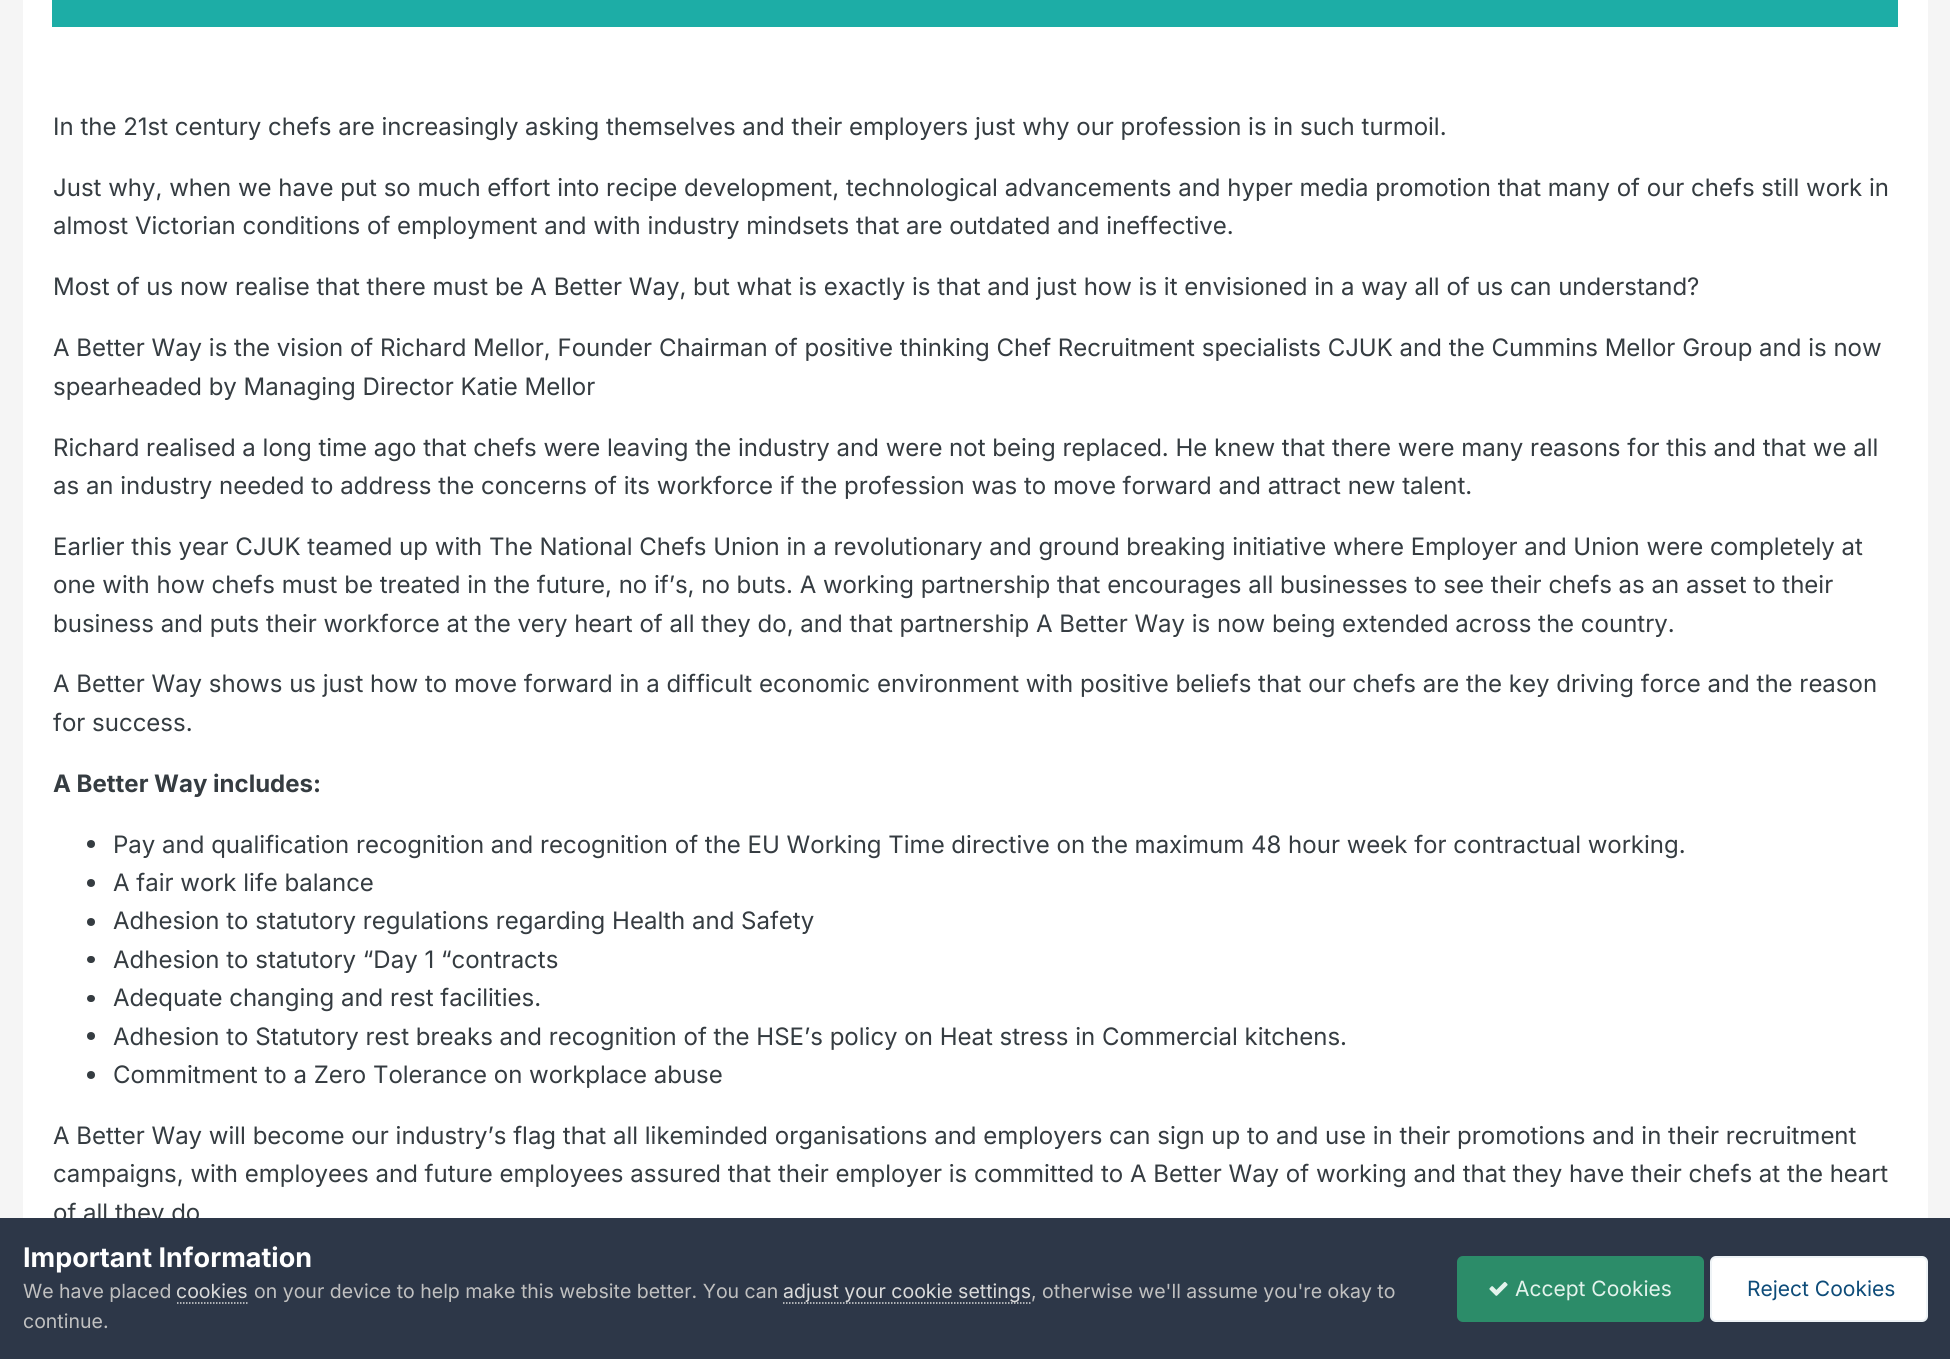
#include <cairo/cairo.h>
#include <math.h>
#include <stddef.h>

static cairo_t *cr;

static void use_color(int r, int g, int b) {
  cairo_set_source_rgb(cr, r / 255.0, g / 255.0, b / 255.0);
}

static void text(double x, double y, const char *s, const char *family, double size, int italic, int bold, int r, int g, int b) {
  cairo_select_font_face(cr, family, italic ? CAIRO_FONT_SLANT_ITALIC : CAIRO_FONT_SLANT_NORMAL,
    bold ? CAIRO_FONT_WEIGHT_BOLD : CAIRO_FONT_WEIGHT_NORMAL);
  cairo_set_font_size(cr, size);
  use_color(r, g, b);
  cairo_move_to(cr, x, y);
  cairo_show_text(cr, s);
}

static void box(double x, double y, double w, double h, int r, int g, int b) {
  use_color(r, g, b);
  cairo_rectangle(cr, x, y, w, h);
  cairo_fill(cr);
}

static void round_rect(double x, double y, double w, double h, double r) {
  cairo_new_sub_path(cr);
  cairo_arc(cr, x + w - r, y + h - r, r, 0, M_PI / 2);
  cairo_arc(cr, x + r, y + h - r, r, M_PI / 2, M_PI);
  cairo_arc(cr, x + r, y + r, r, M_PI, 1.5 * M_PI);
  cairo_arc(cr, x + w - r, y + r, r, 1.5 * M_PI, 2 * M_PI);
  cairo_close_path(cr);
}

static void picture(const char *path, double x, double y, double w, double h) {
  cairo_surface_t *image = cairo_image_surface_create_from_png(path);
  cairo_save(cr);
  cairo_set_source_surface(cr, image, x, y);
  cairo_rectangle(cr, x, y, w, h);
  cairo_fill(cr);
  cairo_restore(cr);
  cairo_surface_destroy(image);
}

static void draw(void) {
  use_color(245, 245, 245);
  cairo_paint(cr);
  box(23, 0, 1905, 1218, 255, 255, 255);
  box(52, 0, 1846, 27, 29, 173, 166);
  use_color(53, 60, 65);
  cairo_arc(cr, 91, 844, 4, 0, 2 * M_PI);
  cairo_fill(cr);
  cairo_arc(cr, 91, 883, 4, 0, 2 * M_PI);
  cairo_fill(cr);
  cairo_arc(cr, 91, 922, 4, 0, 2 * M_PI);
  cairo_fill(cr);
  round_rect(87, 956, 8, 7, 3.5);
  cairo_fill(cr);
  round_rect(87, 995, 8, 7, 3.5);
  cairo_fill(cr);
  cairo_arc(cr, 91, 1036, 4, 0, 2 * M_PI);
  cairo_fill(cr);
  cairo_arc(cr, 91, 1075, 4, 0, 2 * M_PI);
  cairo_fill(cr);
  text(53, 135, "In the 21st century chefs are increasingly asking themselves and their employers just why our profession is in such turmoil.", "Inter", 24, 0, 0, 53, 60, 65);
  text(53, 196, "Just why, when we have put so much effort into recipe development, technological advancements and hyper media promotion that many of our chefs still work in", "Inter", 24, 0, 0, 53, 60, 65);
  text(53, 234, "almost Victorian conditions of employment and with industry mindsets that are outdated and ineffective.", "Inter", 24, 0, 0, 53, 60, 65);
  text(53, 295, "Most of us now realise that there must be A Better Way, but what is exactly is that and just how is it envisioned in a way all of us can understand?", "Inter", 24, 0, 0, 53, 60, 65);
  text(53, 356, "A Better Way is the vision of Richard Mellor, Founder Chairman of positive thinking Chef Recruitment specialists CJUK and the Cummins Mellor Group and is now", "Inter", 24, 0, 0, 53, 60, 65);
  text(53, 395, "spearheaded by Managing Director Katie Mellor", "Inter", 24, 0, 0, 53, 60, 65);
  text(53, 456, "Richard realised a long time ago that chefs were leaving the industry and were not being replaced. He knew that there were many reasons for this and that we all", "Inter", 24, 0, 0, 53, 60, 65);
  text(53, 494, "as an industry needed to address the concerns of its workforce if the profession was to move forward and attract new talent.", "Inter", 24, 0, 0, 53, 60, 65);
  text(53, 555, "Earlier this year CJUK teamed up with The National Chefs Union in a revolutionary and ground breaking initiative where Employer and Union were completely at", "Inter", 24, 0, 0, 53, 60, 65);
  text(53, 593, "one with how chefs must be treated in the future, no if’s, no buts. A working partnership that encourages all businesses to see their chefs as an asset to their", "Inter", 24, 0, 0, 53, 60, 65);
  text(53, 632, "business and puts their workforce at the very heart of all they do, and that partnership A Better Way is now being extended across the country.", "Inter", 24, 0, 0, 53, 60, 65);
  text(53, 692, "A Better Way shows us just how to move forward in a difficult economic environment with positive beliefs that our chefs are the key driving force and the reason", "Inter", 24, 0, 0, 53, 60, 65);
  text(53, 731, "for success.", "Inter", 24, 0, 0, 53, 60, 65);
  text(53, 792, "A Better Way includes:", "Inter", 24, 0, 1, 53, 60, 65);
  text(113, 853, "Pay and qualification recognition and recognition of the EU Working Time directive on the maximum 48 hour week for contractual working.", "Inter", 24, 0, 0, 53, 60, 65);
  text(113, 891, "A fair work life balance", "Inter", 24, 0, 0, 53, 60, 65);
  text(113, 929, "Adhesion to statutory regulations regarding Health and Safety", "Inter", 24, 0, 0, 53, 60, 65);
  text(113, 968, "Adhesion to statutory “Day 1 “contracts", "Inter", 24, 0, 0, 53, 60, 65);
  text(113, 1006, "Adequate changing and rest facilities.", "Inter", 24, 0, 0, 53, 60, 65);
  text(113, 1045, "Adhesion to Statutory rest breaks and recognition of the HSE’s policy on Heat stress in Commercial kitchens.", "Inter", 24, 0, 0, 53, 60, 65);
  text(113, 1083, "Commitment to a Zero Tolerance on workplace abuse", "Inter", 24, 0, 0, 53, 60, 65);
  text(53, 1144, "A Better Way will become our industry’s flag that all likeminded organisations and employers can sign up to and use in their promotions and in their recruitment", "Inter", 24, 0, 0, 53, 60, 65);
  text(53, 1182, "campaigns, with employees and future employees assured that their employer is committed to A Better Way of working and that they have their chefs at the heart", "Inter", 24, 0, 0, 53, 60, 65);
  text(53, 1221, "of all they do", "Inter", 24, 0, 0, 53, 60, 65);
  box(0, 1218, 1950, 141, 45, 55, 72);
  text(23, 1267, "Important Information", "Inter", 27, 0, 1, 255, 255, 255);
  text(23, 1298, "We have placed", "Inter", 19.5, 0, 0, 192, 192, 192);
  text(176, 1298, "cookies", "Inter", 19.5, 0, 0, 218, 218, 218);
  cairo_new_path(cr);
  cairo_move_to(cr, 177, 1303);
  cairo_line_to(cr, 247.5, 1303);
  cairo_set_line_width(cr, 1.5);
  cairo_set_dash(cr, (double[]){1.5, 1.5}, 2, 0);
  cairo_stroke(cr);
  text(254, 1298, "on your device to help make this website better. You can", "Inter", 19.5, 0, 0, 192, 192, 192);
  cairo_new_path(cr);
  cairo_move_to(cr, 783, 1303);
  cairo_line_to(cr, 1032, 1303);
  use_color(218, 218, 218);
  cairo_stroke(cr);
  text(783, 1298, "adjust your cookie settings", "Inter", 19.5, 0, 0, 218, 218, 218);
  text(1031, 1298, ", otherwise we'll assume you're okay to", "Inter", 19.5, 0, 0, 192, 192, 192);
  text(23, 1328, "continue.", "Inter", 19.5, 0, 0, 192, 192, 192);
  use_color(44, 140, 105);
  round_rect(1457, 1256, 247, 66, 6);
  cairo_fill(cr);
  picture("img_01.png", 1489, 1281, 19, 15);
  text(1515, 1296, "Accept Cookies", "Inter", 21, 0, 0, 227, 243, 236);
  use_color(255, 255, 255);
  round_rect(1710, 1256, 218, 66, 6);
  cairo_fill(cr);
  round_rect(1711, 1257, 216, 64, 5);
  cairo_set_source_rgba(cr, 0.055, 0.298, 0.475, 0.07);
  cairo_set_line_width(cr, 2);
  cairo_set_dash(cr, NULL, 0, 0);
  cairo_stroke(cr);
  text(1747, 1296, "Reject Cookies", "Inter", 21, 0, 0, 14, 76, 121);
}

int main(void) {
  cairo_surface_t *surface = cairo_image_surface_create(CAIRO_FORMAT_RGB24, 1950, 1359);
  cr = cairo_create(surface);
  cairo_font_options_t *options = cairo_font_options_create();
  cairo_font_options_set_hint_metrics(options, CAIRO_HINT_METRICS_OFF);
  cairo_font_options_set_hint_style(options, CAIRO_HINT_STYLE_NONE);
  cairo_set_font_options(cr, options);
  cairo_set_miter_limit(cr, 4);
  draw();
  cairo_surface_write_to_png(surface, "out.png");
  cairo_font_options_destroy(options);
  cairo_destroy(cr);
  cairo_surface_destroy(surface);
  return 0;
}
